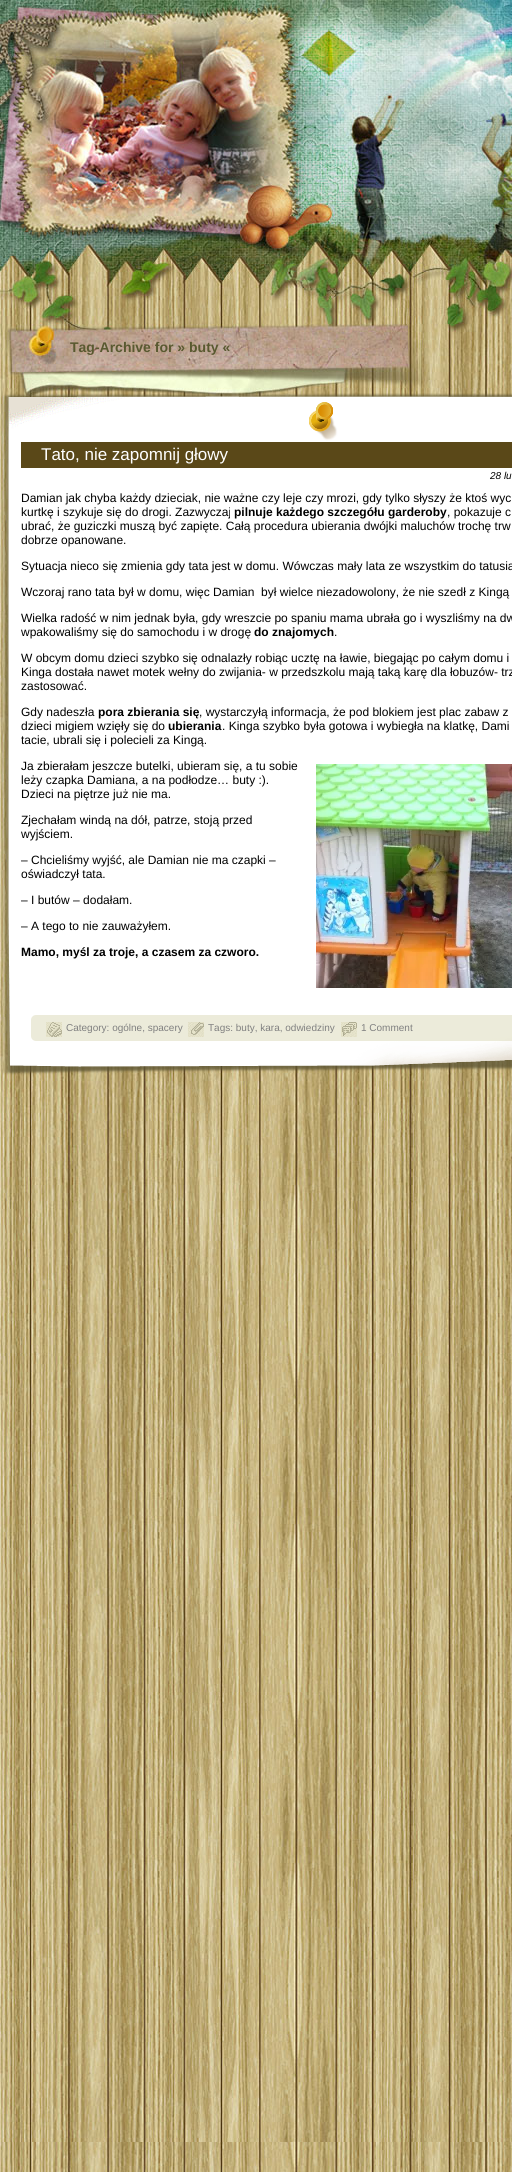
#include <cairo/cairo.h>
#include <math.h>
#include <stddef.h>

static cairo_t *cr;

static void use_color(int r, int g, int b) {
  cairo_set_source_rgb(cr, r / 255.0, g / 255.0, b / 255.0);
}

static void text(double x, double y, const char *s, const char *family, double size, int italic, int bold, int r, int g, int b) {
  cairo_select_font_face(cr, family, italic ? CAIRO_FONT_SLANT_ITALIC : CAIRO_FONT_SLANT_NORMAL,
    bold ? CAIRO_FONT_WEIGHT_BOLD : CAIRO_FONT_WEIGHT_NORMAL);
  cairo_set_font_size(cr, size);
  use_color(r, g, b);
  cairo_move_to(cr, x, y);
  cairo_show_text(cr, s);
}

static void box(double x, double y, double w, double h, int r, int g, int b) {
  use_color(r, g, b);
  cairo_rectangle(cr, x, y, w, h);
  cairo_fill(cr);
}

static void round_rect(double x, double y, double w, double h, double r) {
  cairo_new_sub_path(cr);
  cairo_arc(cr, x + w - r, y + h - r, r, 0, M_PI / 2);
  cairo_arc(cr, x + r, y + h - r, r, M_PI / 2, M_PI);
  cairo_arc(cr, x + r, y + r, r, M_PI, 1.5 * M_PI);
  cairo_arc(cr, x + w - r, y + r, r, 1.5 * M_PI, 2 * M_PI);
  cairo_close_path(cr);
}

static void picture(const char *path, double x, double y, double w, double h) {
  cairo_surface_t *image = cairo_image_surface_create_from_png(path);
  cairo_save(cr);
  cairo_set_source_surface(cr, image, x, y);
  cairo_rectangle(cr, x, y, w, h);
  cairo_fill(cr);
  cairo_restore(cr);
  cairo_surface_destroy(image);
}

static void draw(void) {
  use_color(255, 255, 255);
  cairo_paint(cr);
  picture("img_01.png", 0, 450, 512, 1692);
  picture("img_02.png", 0, 0, 512, 300);
  picture("img_03.png", 0, 300, 512, 150);
  picture("img_04.png", 0, 393, 512, 48);
  picture("img_05.png", 0, 441, 512, 401);
  box(21, 442, 491, 26, 90, 72, 24);
  picture("img_10.png", 0, 842, 512, 233);
  picture("img_06.png", 316, 764, 196, 224);
  cairo_set_source_rgba(cr, 0.859, 0.851, 0.718, 0.5);
  round_rect(31, 1015, 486, 26, 5);
  cairo_fill(cr);
  picture("img_07.png", 46, 1022, 16, 15);
  picture("img_08.png", 188, 1022, 16, 15);
  picture("img_09.png", 341, 1022, 16, 15);
  picture("img_11.png", 0, 2142, 512, 30);
  text(70, 352, "Tag-Archive for » buty «", "Liberation Sans", 14, 0, 1, 89, 89, 48);
  text(41, 460, "Tato, nie zapomnij głowy", "Liberation Sans", 17, 0, 0, 255, 255, 255);
  text(490, 479, "28 lu", "Liberation Sans", 10, 1, 0, 0, 0, 0);
  text(21, 502, "Damian jak chyba każdy dzieciak, nie ważne czy leje czy mrozi, gdy tylko słyszy że ktoś wyc", "Liberation Sans", 12, 0, 0, 0, 0, 0);
  text(21, 516, "kurtkę i szykuje się do drogi. Zazwyczaj", "Liberation Sans", 12, 0, 0, 0, 0, 0);
  text(234, 516, "pilnuje każdego szczegółu garderoby", "Liberation Sans", 12, 0, 1, 0, 0, 0);
  text(447, 516, ", pokazuje c", "Liberation Sans", 12, 0, 0, 0, 0, 0);
  text(21, 530, "ubrać, że guziczki muszą być zapięte. Całą procedura ubierania dwójki maluchów trochę trw", "Liberation Sans", 12, 0, 0, 0, 0, 0);
  text(21, 544, "dobrze opanowane.", "Liberation Sans", 12, 0, 0, 0, 0, 0);
  text(21, 570, "Sytuacja nieco się zmienia gdy tata jest w domu. Wówczas mały lata ze wszystkim do tatusia", "Liberation Sans", 12, 0, 0, 0, 0, 0);
  text(21, 596, "Wczoraj rano tata był w domu, więc Damian  był wielce niezadowolony, że nie szedł z Kingą", "Liberation Sans", 12, 0, 0, 0, 0, 0);
  text(21, 622, "Wielka radość w nim jednak była, gdy wreszcie po spaniu mama ubrała go i wyszliśmy na dw", "Liberation Sans", 12, 0, 0, 0, 0, 0);
  text(21, 636, "wpakowaliśmy się do samochodu i w drogę", "Liberation Sans", 12, 0, 0, 0, 0, 0);
  text(254, 636, "do znajomych", "Liberation Sans", 12, 0, 1, 0, 0, 0);
  text(334, 636, ".", "Liberation Sans", 12, 0, 0, 0, 0, 0);
  text(21, 662, "W obcym domu dzieci szybko się odnalazły robiąc ucztę na ławie, biegając po całym domu i", "Liberation Sans", 12, 0, 0, 0, 0, 0);
  text(21, 676, "Kinga dostała nawet motek wełny do zwijania- w przedszkolu mają taką karę dla łobuzów- trz", "Liberation Sans", 12, 0, 0, 0, 0, 0);
  text(21, 690, "zastosować.", "Liberation Sans", 12, 0, 0, 0, 0, 0);
  text(21, 716, "Gdy nadeszła", "Liberation Sans", 12, 0, 0, 0, 0, 0);
  text(98, 716, "pora zbierania się", "Liberation Sans", 12, 0, 1, 0, 0, 0);
  text(199, 716, ", wystarczyłą informacja, że pod blokiem jest plac zabaw z", "Liberation Sans", 12, 0, 0, 0, 0, 0);
  text(21, 730, "dzieci migiem wzięły się do", "Liberation Sans", 12, 0, 0, 0, 0, 0);
  text(168, 730, "ubierania", "Liberation Sans", 12, 0, 1, 0, 0, 0);
  text(222, 730, ". Kinga szybko była gotowa i wybiegła na klatkę, Dami", "Liberation Sans", 12, 0, 0, 0, 0, 0);
  text(21, 744, "tacie, ubrali się i polecieli za Kingą.", "Liberation Sans", 12, 0, 0, 0, 0, 0);
  text(21, 770, "Ja zbierałam jeszcze butelki, ubieram się, a tu sobie", "Liberation Sans", 12, 0, 0, 0, 0, 0);
  text(21, 784, "leży czapka Damiana, a na podłodze… buty :).", "Liberation Sans", 12, 0, 0, 0, 0, 0);
  text(21, 798, "Dzieci na piętrze już nie ma.", "Liberation Sans", 12, 0, 0, 0, 0, 0);
  text(21, 824, "Zjechałam windą na dół, patrze, stoją przed", "Liberation Sans", 12, 0, 0, 0, 0, 0);
  text(21, 838, "wyjściem.", "Liberation Sans", 12, 0, 0, 0, 0, 0);
  text(21, 864, "– Chcieliśmy wyjść, ale Damian nie ma czapki –", "Liberation Sans", 12, 0, 0, 0, 0, 0);
  text(21, 878, "oświadczył tata.", "Liberation Sans", 12, 0, 0, 0, 0, 0);
  text(21, 904, "– I butów – dodałam.", "Liberation Sans", 12, 0, 0, 0, 0, 0);
  text(21, 930, "– A tego to nie zauważyłem.", "Liberation Sans", 12, 0, 0, 0, 0, 0);
  text(21, 956, "Mamo, myśl za troje, a czasem za czworo.", "Liberation Sans", 12, 0, 1, 0, 0, 0);
  text(66, 1031, "Category: ogólne, spacery", "Liberation Sans", 10, 0, 0, 128, 128, 128);
  text(208, 1031, "Tags: buty, kara, odwiedziny", "Liberation Sans", 10, 0, 0, 128, 128, 128);
  text(361, 1031, "1 Comment", "Liberation Sans", 10, 0, 0, 128, 128, 128);
}

int main(void) {
  cairo_surface_t *surface = cairo_image_surface_create(CAIRO_FORMAT_RGB24, 512, 2172);
  cr = cairo_create(surface);
  cairo_font_options_t *options = cairo_font_options_create();
  cairo_font_options_set_hint_metrics(options, CAIRO_HINT_METRICS_OFF);
  cairo_font_options_set_hint_style(options, CAIRO_HINT_STYLE_NONE);
  cairo_set_font_options(cr, options);
  cairo_set_miter_limit(cr, 4);
  draw();
  cairo_surface_write_to_png(surface, "out.png");
  cairo_font_options_destroy(options);
  cairo_destroy(cr);
  cairo_surface_destroy(surface);
  return 0;
}
